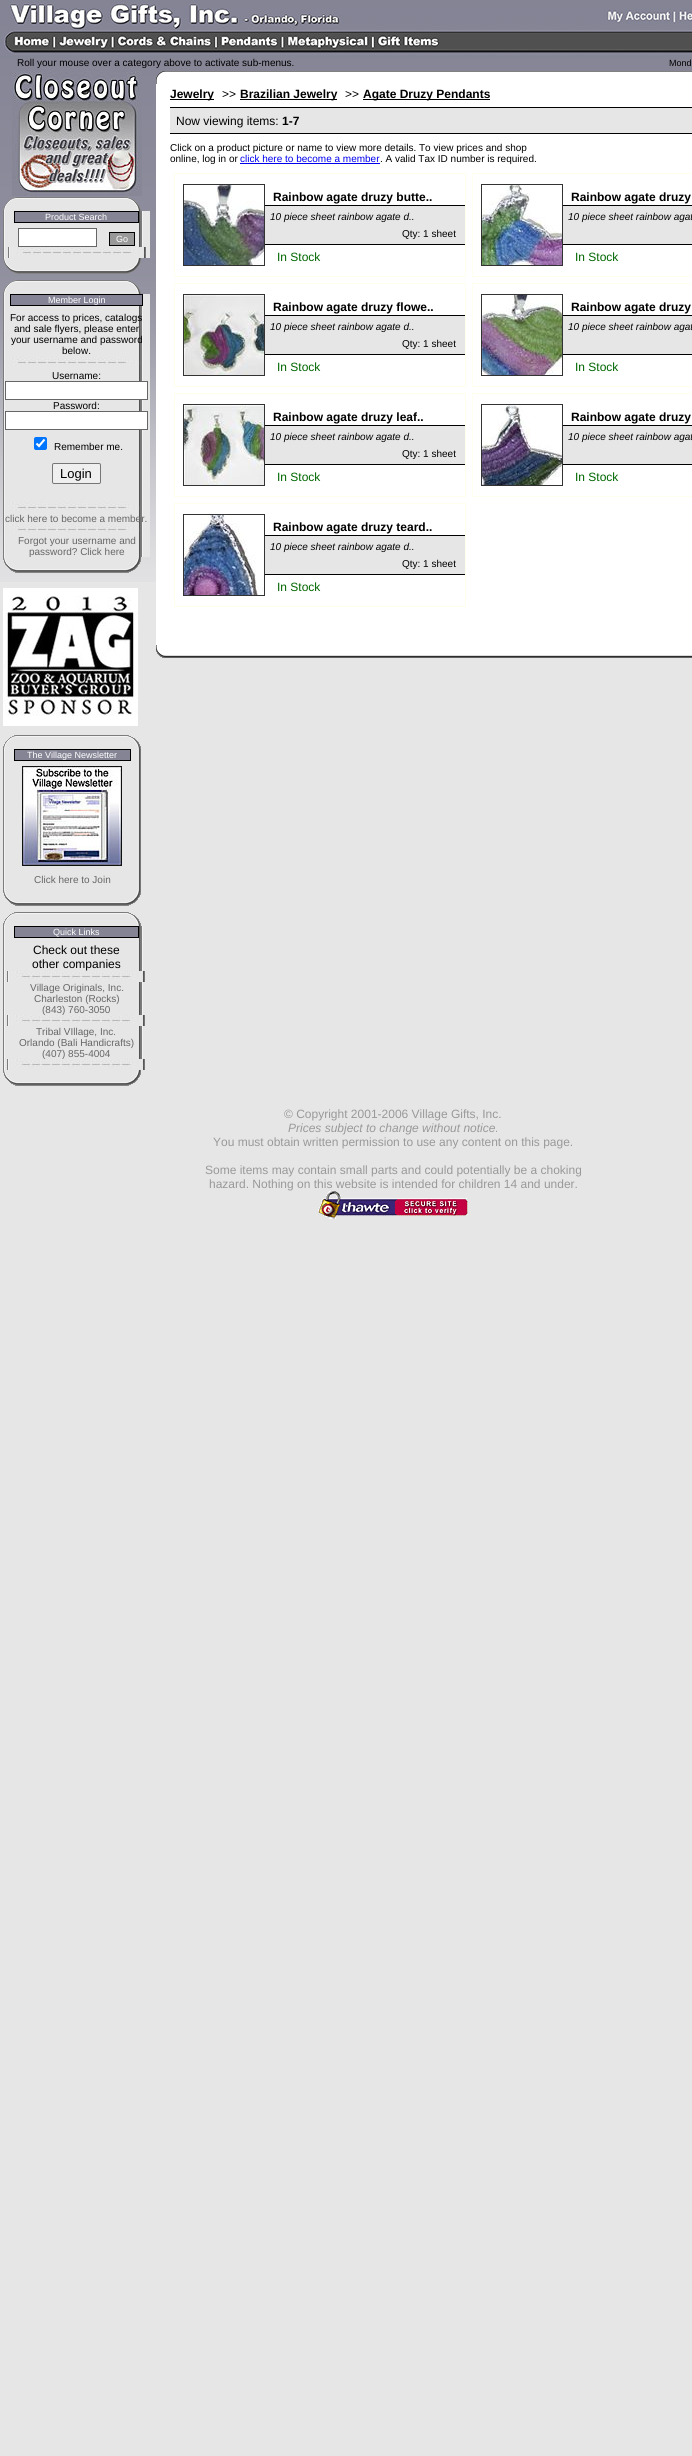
#include <cairo/cairo.h>
#include <math.h>
#include <stddef.h>

static cairo_t *cr;

static void use_color(int r, int g, int b) {
  cairo_set_source_rgb(cr, r / 255.0, g / 255.0, b / 255.0);
}

static void text(double x, double y, const char *s, const char *family, double size, int italic, int bold, int r, int g, int b) {
  cairo_select_font_face(cr, family, italic ? CAIRO_FONT_SLANT_ITALIC : CAIRO_FONT_SLANT_NORMAL,
    bold ? CAIRO_FONT_WEIGHT_BOLD : CAIRO_FONT_WEIGHT_NORMAL);
  cairo_set_font_size(cr, size);
  use_color(r, g, b);
  cairo_move_to(cr, x, y);
  cairo_show_text(cr, s);
}

static void box(double x, double y, double w, double h, int r, int g, int b) {
  use_color(r, g, b);
  cairo_rectangle(cr, x, y, w, h);
  cairo_fill(cr);
}

static void round_rect(double x, double y, double w, double h, double r) {
  cairo_new_sub_path(cr);
  cairo_arc(cr, x + w - r, y + h - r, r, 0, M_PI / 2);
  cairo_arc(cr, x + r, y + h - r, r, M_PI / 2, M_PI);
  cairo_arc(cr, x + r, y + r, r, M_PI, 1.5 * M_PI);
  cairo_arc(cr, x + w - r, y + r, r, 1.5 * M_PI, 2 * M_PI);
  cairo_close_path(cr);
}

static void picture(const char *path, double x, double y, double w, double h) {
  cairo_surface_t *image = cairo_image_surface_create_from_png(path);
  cairo_save(cr);
  cairo_set_source_surface(cr, image, x, y);
  cairo_rectangle(cr, x, y, w, h);
  cairo_fill(cr);
  cairo_restore(cr);
  cairo_surface_destroy(image);
}

static void draw(void) {
  use_color(230, 230, 230);
  cairo_paint(cr);
  picture("img_01.png", 0, 56, 692, 526);
  picture("img_02.png", 0, 0, 692, 56);
  picture("img_03.png", 12, 71, 130, 125);
  picture("img_04.png", 3, 197, 138, 14);
  picture("img_05.png", 3, 211, 147, 47);
  box(14, 211, 125, 12, 0, 0, 0);
  box(15, 212, 123, 10, 133, 132, 148);
  use_color(255, 255, 255);
  cairo_rectangle(cr, 18.5, 228.5, 78, 18);
  cairo_fill_preserve(cr);
  use_color(102, 102, 102);
  cairo_set_line_width(cr, 1);
  cairo_stroke(cr);
  use_color(153, 153, 153);
  cairo_rectangle(cr, 109.5, 232.5, 25, 13);
  cairo_fill_preserve(cr);
  use_color(0, 0, 0);
  cairo_stroke(cr);
  picture("img_06.png", 8, 247, 138, 11);
  picture("img_07.png", 3, 258, 138, 16);
  picture("img_08.png", 3, 280, 138, 14);
  picture("img_09.png", 3, 294, 147, 263);
  box(10, 294, 133, 12, 0, 0, 0);
  box(11, 295, 131, 10, 133, 132, 150);
  picture("img_10.png", 11, 357, 129, 8);
  use_color(255, 255, 255);
  cairo_rectangle(cr, 5.5, 381.5, 142, 18);
  cairo_fill_preserve(cr);
  use_color(102, 102, 102);
  cairo_stroke(cr);
  use_color(255, 255, 255);
  cairo_rectangle(cr, 5.5, 411.5, 142, 18);
  cairo_fill_preserve(cr);
  use_color(102, 102, 102);
  cairo_stroke(cr);
  use_color(0, 117, 255);
  round_rect(34, 437, 13, 13, 2);
  cairo_fill(cr);
  cairo_new_path(cr);
  cairo_move_to(cr, 36.5, 443.5);
  cairo_line_to(cr, 39, 446);
  cairo_line_to(cr, 44.5, 439.5);
  use_color(255, 255, 255);
  cairo_set_line_width(cr, 2.1);
  cairo_stroke(cr);
  use_color(239, 239, 239);
  round_rect(52.5, 463.5, 48, 20, 1.5);
  cairo_fill_preserve(cr);
  use_color(118, 118, 118);
  cairo_set_line_width(cr, 1);
  cairo_stroke(cr);
  picture("img_10.png", 11, 502, 129, 8);
  picture("img_10.png", 11, 524, 129, 8);
  picture("img_12.png", 3, 588, 135, 138);
  picture("img_13.png", 3, 735, 138, 14);
  picture("img_14.png", 3, 749, 138, 141);
  box(14, 749, 117, 12, 0, 0, 0);
  box(15, 750, 115, 10, 133, 132, 148);
  picture("img_15.png", 22, 766, 100, 100);
  picture("img_16.png", 3, 890, 138, 16);
  picture("img_13.png", 3, 912, 138, 14);
  picture("img_17.png", 3, 926, 140, 144);
  box(14, 926, 125, 12, 0, 0, 0);
  box(15, 927, 123, 10, 133, 132, 148);
  picture("img_06.png", 7, 971, 138, 11);
  picture("img_16.png", 3, 1070, 138, 16);
  picture("img_18.png", 156, 71, 536, 13);
  box(156, 84, 536, 561, 255, 255, 255);
  box(170, 99, 44, 1, 0, 0, 0);
  box(240, 99, 97, 1, 0, 0, 0);
  box(363, 99, 127, 1, 0, 0, 0);
  box(170, 107, 522, 1, 0, 0, 0);
  box(170, 108, 522, 25, 230, 230, 230);
  box(170, 133, 522, 1, 0, 0, 0);
  box(240, 163, 140, 1, 0, 0, 238);
  cairo_rectangle(cr, 174.5, 173.5, 291, 103);
  use_color(255, 255, 238);
  cairo_stroke(cr);
  box(183, 184, 82, 82, 51, 51, 51);
  picture("img_19.png", 184, 185, 80, 80);
  box(265, 205, 200, 1, 0, 0, 0);
  box(265, 206, 200, 38, 230, 230, 230);
  box(265, 244, 200, 1, 0, 0, 0);
  cairo_rectangle(cr, 472.5, 173.5, 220, 103);
  use_color(255, 255, 238);
  cairo_stroke(cr);
  box(481, 184, 82, 82, 51, 51, 51);
  picture("img_20.png", 482, 185, 80, 80);
  box(563, 205, 129, 1, 0, 0, 0);
  box(563, 206, 129, 38, 230, 230, 230);
  box(563, 244, 129, 1, 0, 0, 0);
  cairo_rectangle(cr, 174.5, 283.5, 291, 103);
  use_color(255, 255, 238);
  cairo_stroke(cr);
  box(183, 294, 82, 82, 51, 51, 51);
  picture("img_21.png", 184, 295, 80, 80);
  box(265, 315, 200, 1, 0, 0, 0);
  box(265, 316, 200, 38, 230, 230, 230);
  box(265, 354, 200, 1, 0, 0, 0);
  cairo_rectangle(cr, 472.5, 283.5, 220, 103);
  use_color(255, 255, 238);
  cairo_stroke(cr);
  box(481, 294, 82, 82, 51, 51, 51);
  picture("img_22.png", 482, 295, 80, 80);
  box(563, 315, 129, 1, 0, 0, 0);
  box(563, 316, 129, 38, 230, 230, 230);
  box(563, 354, 129, 1, 0, 0, 0);
  cairo_rectangle(cr, 174.5, 393.5, 291, 103);
  use_color(255, 255, 238);
  cairo_stroke(cr);
  box(183, 404, 82, 82, 51, 51, 51);
  picture("img_23.png", 184, 405, 80, 80);
  box(265, 425, 200, 1, 0, 0, 0);
  box(265, 426, 200, 38, 230, 230, 230);
  box(265, 464, 200, 1, 0, 0, 0);
  cairo_rectangle(cr, 472.5, 393.5, 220, 103);
  use_color(255, 255, 238);
  cairo_stroke(cr);
  box(481, 404, 82, 82, 51, 51, 51);
  picture("img_24.png", 482, 405, 80, 80);
  box(563, 425, 129, 1, 0, 0, 0);
  box(563, 426, 129, 38, 230, 230, 230);
  box(563, 464, 129, 1, 0, 0, 0);
  cairo_rectangle(cr, 174.5, 503.5, 291, 103);
  use_color(255, 255, 238);
  cairo_stroke(cr);
  box(183, 514, 82, 82, 51, 51, 51);
  box(263, 515, 1, 80, 255, 255, 255);
  picture("img_25.png", 184, 515, 79, 80);
  box(265, 535, 200, 1, 0, 0, 0);
  box(265, 536, 200, 38, 230, 230, 230);
  box(265, 574, 200, 1, 0, 0, 0);
  picture("img_26.png", 156, 645, 536, 13);
  picture("img_27.png", 318, 1191, 150, 28);
  text(17, 66, "Roll your mouse over a category above to activate sub-menus.", "Liberation Sans", 10, 0, 0, 0, 0, 0);
  text(669, 66, "Mond", "Liberation Sans", 9, 0, 0, 0, 0, 0);
  text(45, 220, "Product Search", "Liberation Sans", 9, 0, 0, 255, 255, 255);
  text(116, 242, "Go", "Liberation Sans", 9, 0, 0, 255, 255, 255);
  text(48, 303, "Member Login", "Liberation Sans", 9, 0, 0, 255, 255, 255);
  text(10, 321, "For access to prices, catalogs", "Liberation Sans", 10, 0, 0, 0, 0, 0);
  text(14, 332, "and sale flyers, please enter", "Liberation Sans", 10, 0, 0, 0, 0, 0);
  text(11, 343, "your username and password", "Liberation Sans", 10, 0, 0, 0, 0, 0);
  text(62, 354, "below.", "Liberation Sans", 10, 0, 0, 0, 0, 0);
  text(52, 379, "Username:", "Liberation Sans", 10, 0, 0, 0, 0, 0);
  text(53, 409, "Password:", "Liberation Sans", 10, 0, 0, 0, 0, 0);
  text(54, 450, "Remember me.", "Liberation Sans", 10, 0, 0, 0, 0, 0);
  text(60, 478, "Login", "Liberation Sans", 13, 0, 0, 0, 0, 0);
  text(5, 522, "click here to become a member.", "Liberation Sans", 10, 0, 0, 102, 102, 102);
  text(18, 544, "Forgot your username and", "Liberation Sans", 10, 0, 0, 102, 102, 102);
  text(29, 555, "password? Click here", "Liberation Sans", 10, 0, 0, 102, 102, 102);
  picture("img_11.png", 3, 557, 138, 16);
  text(27, 758, "The Village Newsletter", "Liberation Sans", 9, 0, 0, 255, 255, 255);
  text(34, 883, "Click here to Join", "Liberation Sans", 10, 0, 0, 102, 102, 102);
  text(53, 935, "Quick Links", "Liberation Sans", 9, 0, 0, 255, 255, 255);
  text(33, 954, "Check out these", "Liberation Sans", 12, 0, 0, 0, 0, 0);
  text(32, 968, "other companies", "Liberation Sans", 12, 0, 0, 0, 0, 0);
  text(30, 991, "Village Originals, Inc.", "Liberation Sans", 10, 0, 0, 102, 102, 102);
  text(34, 1002, "Charleston (Rocks)", "Liberation Sans", 10, 0, 0, 102, 102, 102);
  text(42, 1013, "(843) 760-3050", "Liberation Sans", 10, 0, 0, 102, 102, 102);
  picture("img_06.png", 7, 1015, 138, 11);
  text(36, 1035, "Tribal VIllage, Inc.", "Liberation Sans", 10, 0, 0, 102, 102, 102);
  text(19, 1046, "Orlando (Bali Handicrafts)", "Liberation Sans", 10, 0, 0, 102, 102, 102);
  text(42, 1057, "(407) 855-4004", "Liberation Sans", 10, 0, 0, 102, 102, 102);
  picture("img_06.png", 7, 1059, 138, 11);
  text(170, 98, "Jewelry", "Liberation Sans", 12, 0, 1, 0, 0, 0);
  text(222, 98, ">>", "Liberation Sans", 12, 0, 0, 0, 0, 0);
  text(240, 98, "Brazilian Jewelry", "Liberation Sans", 12, 0, 1, 0, 0, 0);
  text(345, 98, ">>", "Liberation Sans", 12, 0, 0, 0, 0, 0);
  text(363, 98, "Agate Druzy Pendants", "Liberation Sans", 12, 0, 1, 0, 0, 0);
  text(176, 125, "Now viewing items:", "Liberation Sans", 12, 0, 0, 0, 0, 0);
  text(282, 125, "1-7", "Liberation Sans", 12, 0, 1, 0, 0, 0);
  text(170, 151, "Click on a product picture or name to view more details. To view prices and shop", "Liberation Sans", 10, 0, 0, 0, 0, 0);
  text(170, 162, "online, log in or", "Liberation Sans", 10, 0, 0, 0, 0, 0);
  text(240, 162, "click here to become a member", "Liberation Sans", 10, 0, 0, 0, 0, 238);
  text(380, 162, ". A valid Tax ID number is required.", "Liberation Sans", 10, 0, 0, 0, 0, 0);
  text(273, 201, "Rainbow agate druzy butte..", "Liberation Sans", 12, 0, 1, 0, 0, 0);
  text(270, 220, "10 piece sheet rainbow agate d..", "Liberation Sans", 10, 1, 0, 0, 0, 0);
  text(402, 237, "Qty: 1 sheet", "Liberation Sans", 10, 0, 0, 0, 0, 0);
  text(277, 261, "In Stock", "Liberation Sans", 12, 0, 0, 0, 102, 0);
  text(571, 201, "Rainbow agate druzy", "Liberation Sans", 12, 0, 1, 0, 0, 0);
  text(568, 220, "10 piece sheet rainbow agat", "Liberation Sans", 10, 1, 0, 0, 0, 0);
  text(575, 261, "In Stock", "Liberation Sans", 12, 0, 0, 0, 102, 0);
  text(273, 311, "Rainbow agate druzy flowe..", "Liberation Sans", 12, 0, 1, 0, 0, 0);
  text(270, 330, "10 piece sheet rainbow agate d..", "Liberation Sans", 10, 1, 0, 0, 0, 0);
  text(402, 347, "Qty: 1 sheet", "Liberation Sans", 10, 0, 0, 0, 0, 0);
  text(277, 371, "In Stock", "Liberation Sans", 12, 0, 0, 0, 102, 0);
  text(571, 311, "Rainbow agate druzy", "Liberation Sans", 12, 0, 1, 0, 0, 0);
  text(568, 330, "10 piece sheet rainbow agat", "Liberation Sans", 10, 1, 0, 0, 0, 0);
  text(575, 371, "In Stock", "Liberation Sans", 12, 0, 0, 0, 102, 0);
  text(273, 421, "Rainbow agate druzy leaf..", "Liberation Sans", 12, 0, 1, 0, 0, 0);
  text(270, 440, "10 piece sheet rainbow agate d..", "Liberation Sans", 10, 1, 0, 0, 0, 0);
  text(402, 457, "Qty: 1 sheet", "Liberation Sans", 10, 0, 0, 0, 0, 0);
  text(277, 481, "In Stock", "Liberation Sans", 12, 0, 0, 0, 102, 0);
  text(571, 421, "Rainbow agate druzy", "Liberation Sans", 12, 0, 1, 0, 0, 0);
  text(568, 440, "10 piece sheet rainbow agat", "Liberation Sans", 10, 1, 0, 0, 0, 0);
  text(575, 481, "In Stock", "Liberation Sans", 12, 0, 0, 0, 102, 0);
  text(273, 531, "Rainbow agate druzy teard..", "Liberation Sans", 12, 0, 1, 0, 0, 0);
  text(270, 550, "10 piece sheet rainbow agate d..", "Liberation Sans", 10, 1, 0, 0, 0, 0);
  text(402, 567, "Qty: 1 sheet", "Liberation Sans", 10, 0, 0, 0, 0, 0);
  text(277, 591, "In Stock", "Liberation Sans", 12, 0, 0, 0, 102, 0);
  text(284, 1118, "© Copyright 2001-2006 Village Gifts, Inc.", "Liberation Sans", 12, 0, 0, 153, 153, 153);
  text(288, 1132, "Prices subject to change without notice.", "Liberation Sans", 12, 1, 0, 153, 153, 153);
  text(213, 1146, "You must obtain written permission to use any content on this page.", "Liberation Sans", 12, 0, 0, 153, 153, 153);
  text(205, 1174, "Some items may contain small parts and could potentially be a choking", "Liberation Sans", 12, 0, 0, 153, 153, 153);
  text(209, 1188, "hazard. Nothing on this website is intended for children 14 and under.", "Liberation Sans", 12, 0, 0, 153, 153, 153);
}

int main(void) {
  cairo_surface_t *surface = cairo_image_surface_create(CAIRO_FORMAT_RGB24, 692, 2456);
  cr = cairo_create(surface);
  cairo_font_options_t *options = cairo_font_options_create();
  cairo_font_options_set_hint_metrics(options, CAIRO_HINT_METRICS_OFF);
  cairo_font_options_set_hint_style(options, CAIRO_HINT_STYLE_NONE);
  cairo_set_font_options(cr, options);
  cairo_set_miter_limit(cr, 4);
  draw();
  cairo_surface_write_to_png(surface, "out.png");
  cairo_font_options_destroy(options);
  cairo_destroy(cr);
  cairo_surface_destroy(surface);
  return 0;
}
